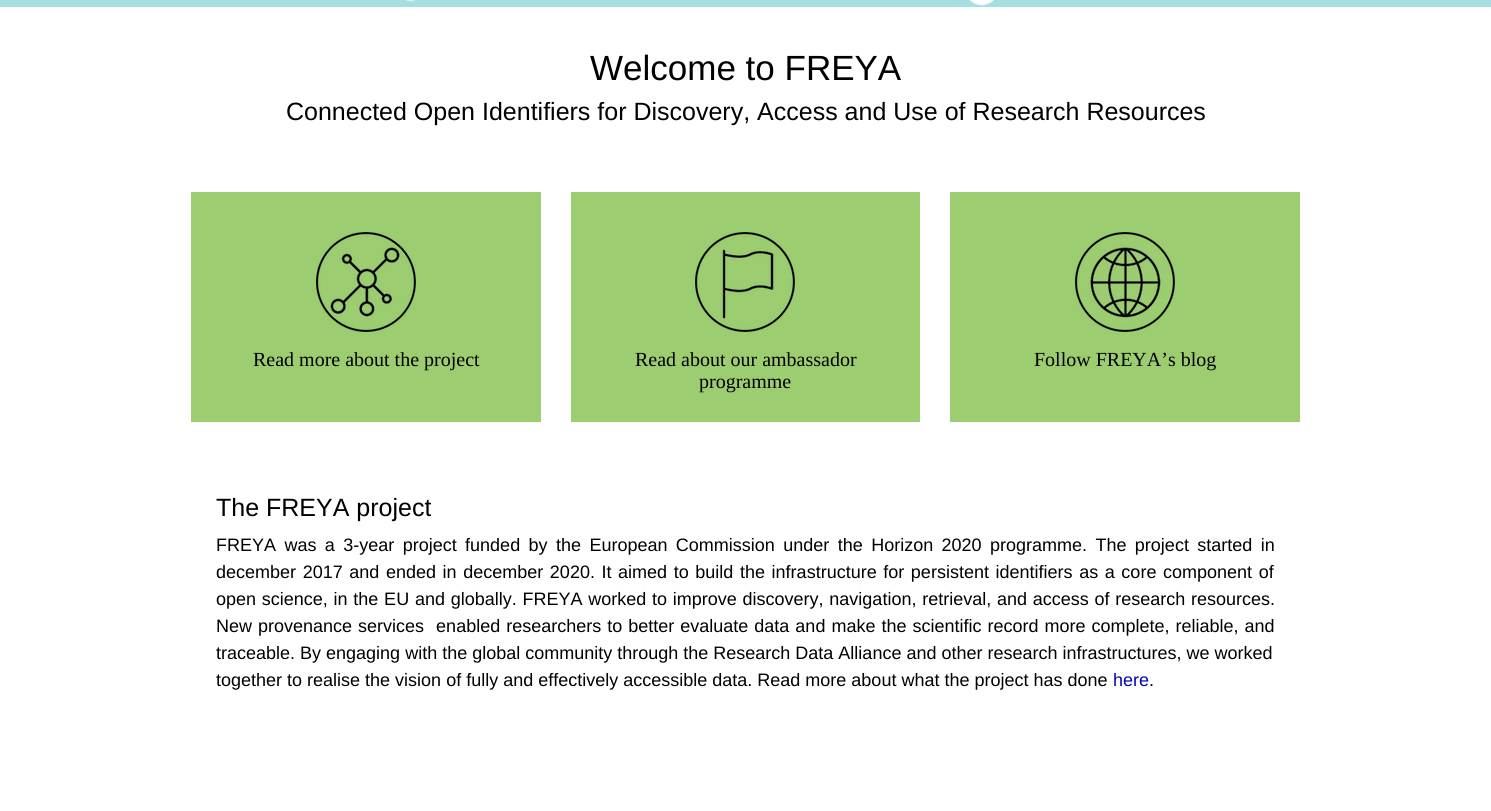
#include <cairo/cairo.h>
#include <math.h>
#include <stddef.h>

static cairo_t *cr;

static void use_color(int r, int g, int b) {
  cairo_set_source_rgb(cr, r / 255.0, g / 255.0, b / 255.0);
}

static void text(double x, double y, const char *s, const char *family, double size, int italic, int bold, int r, int g, int b) {
  cairo_select_font_face(cr, family, italic ? CAIRO_FONT_SLANT_ITALIC : CAIRO_FONT_SLANT_NORMAL,
    bold ? CAIRO_FONT_WEIGHT_BOLD : CAIRO_FONT_WEIGHT_NORMAL);
  cairo_set_font_size(cr, size);
  use_color(r, g, b);
  cairo_move_to(cr, x, y);
  cairo_show_text(cr, s);
}

static void spaced_text(double x, double y, const char *s, double letter, double word) {
  cairo_move_to(cr, x, y);
  while (*s) {
    char ch[5] = {0};
    int n = 0;
    do ch[n++] = *s++; while ((*s & 0xC0) == 0x80);
    cairo_show_text(cr, ch);
    cairo_rel_move_to(cr, letter + word * (*ch == ' '), 0);
  }
}

static void box(double x, double y, double w, double h, int r, int g, int b) {
  use_color(r, g, b);
  cairo_rectangle(cr, x, y, w, h);
  cairo_fill(cr);
}

static void picture(const char *path, double x, double y, double w, double h) {
  cairo_surface_t *image = cairo_image_surface_create_from_png(path);
  cairo_save(cr);
  cairo_set_source_surface(cr, image, x, y);
  cairo_rectangle(cr, x, y, w, h);
  cairo_fill(cr);
  cairo_restore(cr);
  cairo_surface_destroy(image);
}

static void draw(void) {
  use_color(255, 255, 255);
  cairo_paint(cr);
  picture("img_01.png", 0, 0, 1491, 7);
  box(191, 192, 350, 230, 156, 205, 112);
  picture("img_02.png", 316, 232, 100, 100);
  box(571, 192, 349, 230, 156, 205, 112);
  picture("img_03.png", 695, 232, 100, 100);
  box(950, 192, 350, 230, 156, 205, 112);
  picture("img_04.png", 1075, 232, 100, 100);
  text(590, 80, "Welcome to FREYA", "Liberation Sans", 35, 0, 0, 0, 0, 0);
  text(286, 120, "Connected Open Identifiers for Discovery, Access and Use of Research Resources", "Liberation Sans", 25, 0, 0, 0, 0, 0);
  text(253, 366, "Read more about the project", "Liberation Serif", 20, 0, 0, 0, 0, 0);
  text(635, 366, "Read about our ambassador", "Liberation Serif", 20, 0, 0, 0, 0, 0);
  text(699, 388, "programme", "Liberation Serif", 20, 0, 0, 0, 0, 0);
  text(1034, 366, "Follow FREYA’s blog", "Liberation Serif", 20, 0, 0, 0, 0, 0);
  text(216, 516, "The FREYA project", "Liberation Sans", 25, 0, 0, 0, 0, 0);
  cairo_set_font_size(cr, 18);
  spaced_text(216, 551, "FREYA was a 3-year project funded by the European Commission under the Horizon 2020 programme. The project started in", 0, 3.4);
  spaced_text(216, 578, "december 2017 and ended in december 2020. It aimed to build the infrastructure for persistent identifiers as a core component of", 0, 1.6);
  spaced_text(216, 605, "open science, in the EU and globally. FREYA worked to improve discovery, navigation, retrieval, and access of research resources.", 0, 0.75);
  spaced_text(216, 632, "New provenance services  enabled researchers to better evaluate data and make the scientific record more complete, reliable, and", 0, 1);
  text(216, 659, "traceable. By engaging with the global community through the Research Data Alliance and other research infrastructures, we worked", "Liberation Sans", 18, 0, 0, 0, 0, 0);
  text(216, 686, "together to realise the vision of fully and effectively accessible data. Read more about what the project has done", "Liberation Sans", 18, 0, 0, 0, 0, 0);
  text(1113, 686, "here", "Liberation Sans", 18, 0, 0, 4, 4, 180);
  text(1149, 686, ".", "Liberation Sans", 18, 0, 0, 0, 0, 0);
}

int main(void) {
  cairo_surface_t *surface = cairo_image_surface_create(CAIRO_FORMAT_RGB24, 1491, 811);
  cr = cairo_create(surface);
  cairo_font_options_t *options = cairo_font_options_create();
  cairo_font_options_set_hint_metrics(options, CAIRO_HINT_METRICS_OFF);
  cairo_font_options_set_hint_style(options, CAIRO_HINT_STYLE_NONE);
  cairo_set_font_options(cr, options);
  cairo_set_miter_limit(cr, 4);
  draw();
  cairo_surface_write_to_png(surface, "out.png");
  cairo_font_options_destroy(options);
  cairo_destroy(cr);
  cairo_surface_destroy(surface);
  return 0;
}
